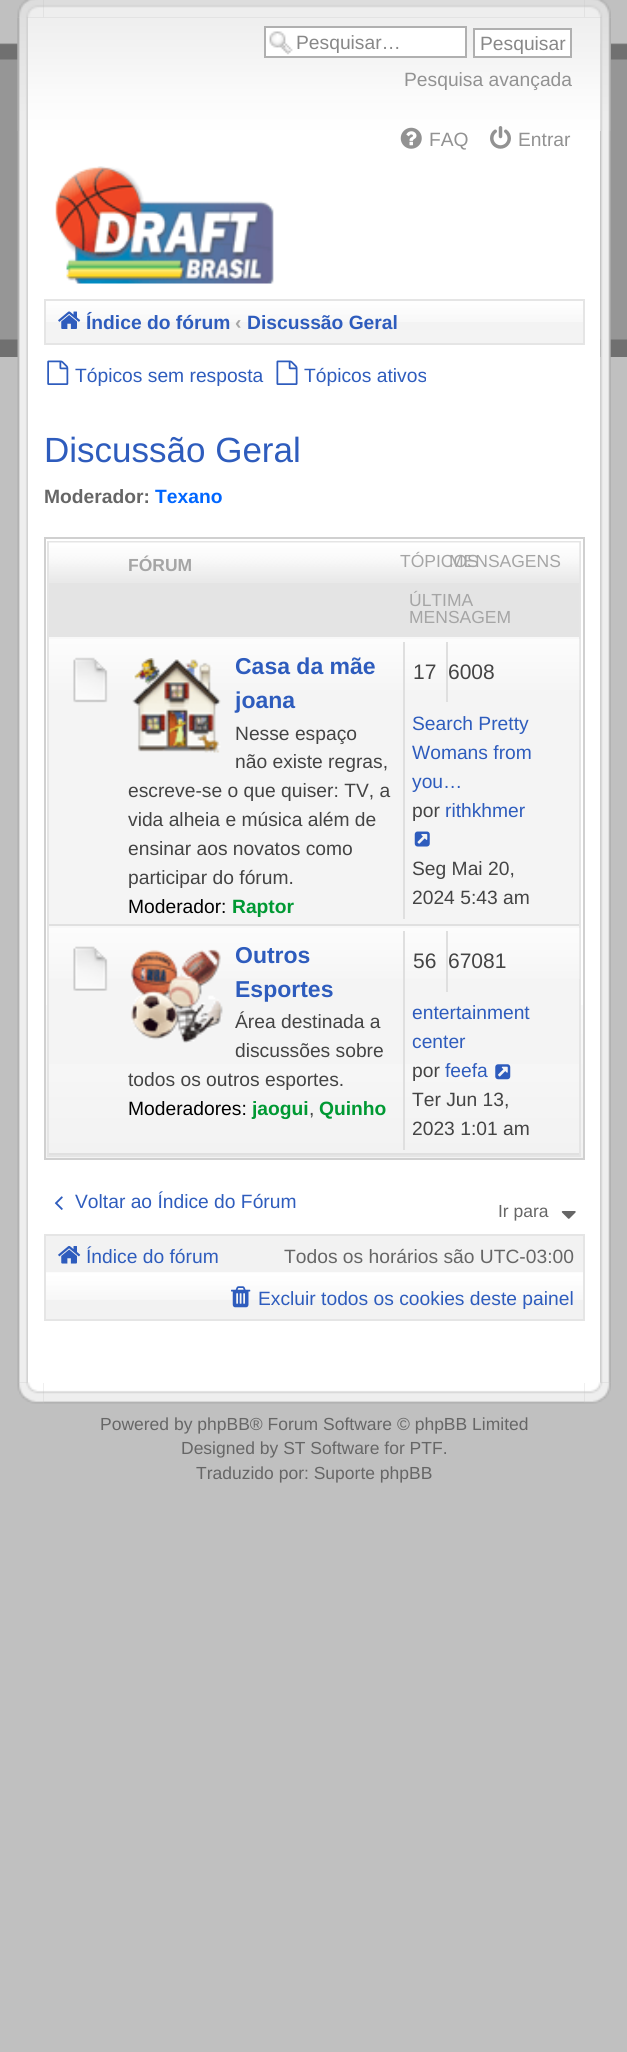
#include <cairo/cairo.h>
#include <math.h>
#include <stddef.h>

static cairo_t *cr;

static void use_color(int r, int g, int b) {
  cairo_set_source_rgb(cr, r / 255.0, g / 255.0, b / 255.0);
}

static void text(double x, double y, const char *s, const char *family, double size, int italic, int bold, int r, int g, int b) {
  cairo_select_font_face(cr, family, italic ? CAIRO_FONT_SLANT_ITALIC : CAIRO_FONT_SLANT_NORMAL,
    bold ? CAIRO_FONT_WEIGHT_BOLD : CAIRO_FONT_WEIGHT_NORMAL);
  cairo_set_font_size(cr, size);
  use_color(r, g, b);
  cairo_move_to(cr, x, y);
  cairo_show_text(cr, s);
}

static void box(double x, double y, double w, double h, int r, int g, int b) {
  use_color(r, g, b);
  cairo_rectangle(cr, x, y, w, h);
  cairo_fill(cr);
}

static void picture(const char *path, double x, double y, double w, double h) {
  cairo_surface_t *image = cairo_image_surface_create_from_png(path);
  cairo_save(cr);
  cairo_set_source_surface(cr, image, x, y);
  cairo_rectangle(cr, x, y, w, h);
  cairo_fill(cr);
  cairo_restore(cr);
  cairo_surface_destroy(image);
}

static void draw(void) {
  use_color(192, 192, 192);
  cairo_paint(cr);
  picture("img_01.png", 0, 43, 627, 314);
  picture("img_02.png", 17, 0, 27, 18);
  picture("img_03.png", 584, 0, 27, 18);
  picture("img_04.png", 44, 0, 541, 18);
  picture("img_05.png", 17, 17, 11, 1366);
  picture("img_06.png", 600, 17, 11, 1366);
  picture("img_07.png", 17, 18, 10, 113);
  picture("img_08.png", 600, 18, 11, 113);
  box(28, 131, 572, 1252, 255, 255, 255);
  picture("img_09.png", 28, 17, 573, 114);
  box(266, 28, 199, 28, 255, 255, 255);
  picture("img_10.png", 269, 31, 24, 24);
  cairo_rectangle(cr, 265, 27, 201, 30);
  use_color(176, 176, 176);
  cairo_stroke(cr);
  use_color(255, 255, 255);
  cairo_rectangle(cr, 474, 29, 97, 28);
  cairo_fill_preserve(cr);
  use_color(176, 176, 176);
  cairo_stroke(cr);
  picture("img_11.png", 400, 127, 22, 22);
  picture("img_12.png", 490, 126, 21, 23);
  picture("img_13.png", 55, 166, 219, 118);
  box(46, 322, 537, 21, 243, 243, 243);
  picture("img_14.png", 46, 301, 537, 21);
  cairo_rectangle(cr, 45, 300, 539, 44);
  use_color(229, 229, 229);
  cairo_stroke(cr);
  picture("img_15.png", 58, 311, 23, 18);
  picture("img_16.png", 47, 360, 22, 25);
  picture("img_17.png", 276, 360, 22, 25);
  picture("img_18.png", 46, 1005, 537, 153);
  cairo_rectangle(cr, 45, 538, 539, 621);
  use_color(208, 208, 208);
  cairo_stroke(cr);
  cairo_rectangle(cr, 48, 542, 532, 614);
  use_color(229, 229, 229);
  cairo_stroke(cr);
  box(49, 583, 530, 54, 228, 228, 228);
  picture("img_19.png", 49, 542, 531, 41);
  box(49, 690, 530, 234, 244, 244, 244);
  picture("img_20.png", 49, 639, 531, 51);
  box(49, 637, 530, 2, 248, 248, 248);
  box(49, 924, 530, 2, 224, 224, 224);
  picture("img_21.png", 73, 657, 35, 46);
  picture("img_22.png", 132, 658, 89, 95);
  box(403, 642, 2, 277, 223, 223, 223);
  box(446, 642, 2, 60, 223, 223, 223);
  picture("img_23.png", 414, 831, 16, 16);
  box(49, 979, 530, 85, 244, 244, 244);
  picture("img_24.png", 49, 928, 531, 51);
  box(49, 926, 530, 2, 248, 248, 248);
  box(49, 1153, 530, 2, 224, 224, 224);
  picture("img_25.png", 73, 946, 35, 45);
  picture("img_26.png", 130, 949, 93, 94);
  box(403, 931, 2, 219, 223, 223, 223);
  box(446, 931, 2, 61, 223, 223, 223);
  picture("img_27.png", 495, 1064, 16, 16);
  picture("img_28.png", 54, 1196, 9, 14);
  picture("img_29.png", 561, 1211, 15, 8);
  box(46, 1236, 537, 83, 242, 242, 242);
  picture("img_30.png", 46, 1272, 537, 28);
  cairo_rectangle(cr, 45, 1235, 539, 85);
  use_color(229, 229, 229);
  cairo_stroke(cr);
  picture("img_31.png", 58, 1246, 23, 18);
  picture("img_32.png", 231, 1286, 20, 22);
  picture("img_33.png", 17, 1382, 27, 22);
  picture("img_34.png", 584, 1382, 27, 22);
  picture("img_35.png", 44, 1383, 541, 21);
  text(296, 49, "Pesquisar…", "Liberation Sans", 19.25, 0, 0, 136, 136, 136);
  text(480, 50, "Pesquisar", "Liberation Sans", 19.25, 0, 0, 136, 136, 136);
  text(404, 86, "Pesquisa avançada", "Liberation Sans", 19.25, 0, 0, 146, 146, 146);
  text(429, 146, "FAQ", "Liberation Sans", 19.25, 0, 0, 146, 146, 146);
  text(518, 146, "Entrar", "Liberation Sans", 19.25, 0, 0, 146, 146, 146);
  text(86, 329, "Índice do fórum", "Liberation Sans", 19.25, 0, 1, 46, 92, 189);
  text(235, 329, "‹", "Liberation Sans", 19.25, 0, 1, 165, 165, 165);
  text(247, 329, "Discussão Geral", "Liberation Sans", 19.25, 0, 1, 46, 92, 189);
  text(75, 382, "Tópicos sem resposta", "Liberation Sans", 19.25, 0, 0, 46, 92, 189);
  text(304, 382, "Tópicos ativos", "Liberation Sans", 19.25, 0, 0, 46, 92, 189);
  text(44, 462, "Discussão Geral", "Liberation Sans", 35, 0, 0, 46, 92, 189);
  text(44, 503, "Moderador:", "Liberation Sans", 19.25, 0, 1, 102, 102, 102);
  text(155, 503, "Texano", "Liberation Sans", 19.25, 0, 1, 0, 102, 255);
  text(128, 571, "FÓRUM", "Liberation Sans", 17.5, 0, 1, 165, 165, 165);
  text(400, 567, "TÓPICOS", "Liberation Sans", 17.5, 0, 0, 165, 165, 165);
  text(449, 567, "MENSAGENS", "Liberation Sans", 17.5, 0, 0, 165, 165, 165);
  text(409, 606, "ÚLTIMA", "Liberation Sans", 17.5, 0, 0, 165, 165, 165);
  text(409, 623, "MENSAGEM", "Liberation Sans", 17.5, 0, 0, 165, 165, 165);
  text(235, 674, "Casa da mãe", "Liberation Sans", 23, 0, 1, 46, 92, 189);
  text(235, 708, "joana", "Liberation Sans", 23, 0, 1, 46, 92, 189);
  text(235, 740, "Nesse espaço", "Liberation Sans", 19.25, 0, 0, 68, 68, 68);
  text(235, 768, "não existe regras,", "Liberation Sans", 19.25, 0, 0, 68, 68, 68);
  text(128, 797, "escreve-se o que quiser: TV, a", "Liberation Sans", 19.25, 0, 0, 68, 68, 68);
  text(128, 826, "vida alheia e música além de", "Liberation Sans", 19.25, 0, 0, 68, 68, 68);
  text(128, 855, "ensinar aos novatos como", "Liberation Sans", 19.25, 0, 0, 68, 68, 68);
  text(128, 884, "participar do fórum.", "Liberation Sans", 19.25, 0, 0, 68, 68, 68);
  text(128, 913, "Moderador:", "Liberation Sans", 19.25, 0, 0, 0, 0, 0);
  text(232, 913, "Raptor", "Liberation Sans", 19.25, 0, 1, 0, 153, 51);
  text(413, 679, "17", "Liberation Sans", 21, 0, 0, 68, 68, 68);
  text(448, 679, "6008", "Liberation Sans", 21, 0, 0, 68, 68, 68);
  text(412, 730, "Search Pretty", "Liberation Sans", 19.25, 0, 0, 46, 92, 189);
  text(412, 759, "Womans from", "Liberation Sans", 19.25, 0, 0, 46, 92, 189);
  text(412, 788, "you…", "Liberation Sans", 19.25, 0, 0, 46, 92, 189);
  text(412, 817, "por", "Liberation Sans", 19.25, 0, 0, 68, 68, 68);
  text(445, 817, "rithkhmer", "Liberation Sans", 19.25, 0, 0, 46, 92, 189);
  text(412, 875, "Seg Mai 20,", "Liberation Sans", 19.25, 0, 0, 68, 68, 68);
  text(412, 904, "2024 5:43 am", "Liberation Sans", 19.25, 0, 0, 68, 68, 68);
  text(235, 963, "Outros", "Liberation Sans", 23, 0, 1, 46, 92, 189);
  text(235, 997, "Esportes", "Liberation Sans", 23, 0, 1, 46, 92, 189);
  text(235, 1028, "Área destinada a", "Liberation Sans", 19.25, 0, 0, 68, 68, 68);
  text(235, 1057, "discussões sobre", "Liberation Sans", 19.25, 0, 0, 68, 68, 68);
  text(128, 1086, "todos os outros esportes.", "Liberation Sans", 19.25, 0, 0, 68, 68, 68);
  text(128, 1115, "Moderadores:", "Liberation Sans", 19.25, 0, 0, 0, 0, 0);
  text(252, 1115, "jaogui", "Liberation Sans", 19.25, 0, 1, 0, 153, 51);
  text(309, 1115, ",", "Liberation Sans", 19.25, 0, 0, 68, 68, 68);
  text(319, 1115, "Quinho", "Liberation Sans", 19.25, 0, 1, 0, 153, 51);
  text(413, 968, "56", "Liberation Sans", 21, 0, 0, 68, 68, 68);
  text(448, 968, "67081", "Liberation Sans", 21, 0, 0, 68, 68, 68);
  text(412, 1019, "entertainment", "Liberation Sans", 19.25, 0, 0, 46, 92, 189);
  text(412, 1048, "center", "Liberation Sans", 19.25, 0, 0, 46, 92, 189);
  text(412, 1077, "por", "Liberation Sans", 19.25, 0, 0, 68, 68, 68);
  text(445, 1077, "feefa", "Liberation Sans", 19.25, 0, 0, 46, 92, 189);
  text(412, 1106, "Ter Jun 13,", "Liberation Sans", 19.25, 0, 0, 68, 68, 68);
  text(412, 1135, "2023 1:01 am", "Liberation Sans", 19.25, 0, 0, 68, 68, 68);
  text(75, 1208, "Voltar ao Índice do Fórum", "Liberation Sans", 19.25, 0, 0, 46, 92, 189);
  text(498, 1217, "Ir para", "Liberation Sans", 17.5, 0, 0, 102, 102, 102);
  text(86, 1263, "Índice do fórum", "Liberation Sans", 19.25, 0, 0, 46, 92, 189);
  text(284, 1263, "Todos os horários são UTC-03:00", "Liberation Sans", 19.25, 0, 0, 102, 102, 102);
  text(258, 1305, "Excluir todos os cookies deste painel", "Liberation Sans", 19.25, 0, 0, 46, 92, 189);
  text(100, 1430, "Powered by phpBB® Forum Software © phpBB Limited", "Liberation Sans", 17.5, 0, 0, 102, 102, 102);
  text(181, 1454, "Designed by ST Software for PTF.", "Liberation Sans", 17.5, 0, 0, 102, 102, 102);
  text(196, 1479, "Traduzido por: Suporte phpBB", "Liberation Sans", 17.5, 0, 0, 102, 102, 102);
}

int main(void) {
  cairo_surface_t *surface = cairo_image_surface_create(CAIRO_FORMAT_RGB24, 627, 2052);
  cr = cairo_create(surface);
  cairo_font_options_t *options = cairo_font_options_create();
  cairo_font_options_set_hint_metrics(options, CAIRO_HINT_METRICS_OFF);
  cairo_font_options_set_hint_style(options, CAIRO_HINT_STYLE_NONE);
  cairo_set_font_options(cr, options);
  cairo_set_miter_limit(cr, 4);
  draw();
  cairo_surface_write_to_png(surface, "out.png");
  cairo_font_options_destroy(options);
  cairo_destroy(cr);
  cairo_surface_destroy(surface);
  return 0;
}
